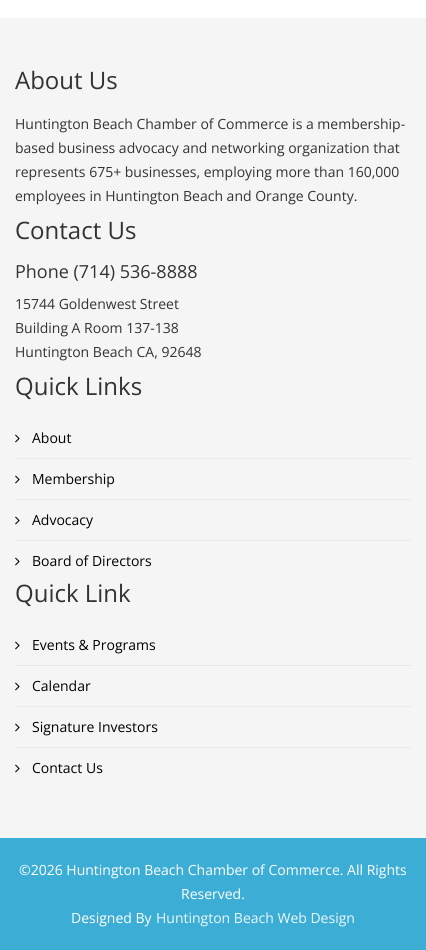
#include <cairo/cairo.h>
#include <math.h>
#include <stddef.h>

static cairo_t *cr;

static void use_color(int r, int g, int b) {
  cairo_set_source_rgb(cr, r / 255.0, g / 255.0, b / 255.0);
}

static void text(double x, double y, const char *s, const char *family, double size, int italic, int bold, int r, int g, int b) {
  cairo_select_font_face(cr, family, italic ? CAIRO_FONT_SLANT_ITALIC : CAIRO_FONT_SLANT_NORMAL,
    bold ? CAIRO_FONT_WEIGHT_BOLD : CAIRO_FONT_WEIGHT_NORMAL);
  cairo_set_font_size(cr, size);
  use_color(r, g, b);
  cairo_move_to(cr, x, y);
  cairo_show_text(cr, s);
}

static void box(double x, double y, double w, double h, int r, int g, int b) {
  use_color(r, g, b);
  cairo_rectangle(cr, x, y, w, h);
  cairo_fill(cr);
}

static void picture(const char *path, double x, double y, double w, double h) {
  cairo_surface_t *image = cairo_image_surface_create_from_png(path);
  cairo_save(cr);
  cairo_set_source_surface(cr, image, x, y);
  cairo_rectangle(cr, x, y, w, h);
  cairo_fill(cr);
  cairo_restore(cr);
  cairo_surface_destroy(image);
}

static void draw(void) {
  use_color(255, 255, 255);
  cairo_paint(cr);
  box(0, 18, 426, 820, 245, 245, 245);
  box(15, 458, 396, 1, 232, 232, 232);
  picture("img_01.png", 15, 434, 5, 9);
  box(15, 499, 396, 1, 232, 232, 232);
  picture("img_01.png", 15, 475, 5, 9);
  box(15, 540, 396, 1, 232, 232, 232);
  picture("img_01.png", 15, 516, 5, 9);
  picture("img_01.png", 15, 557, 5, 9);
  box(15, 665, 396, 1, 232, 232, 232);
  picture("img_01.png", 15, 641, 5, 9);
  box(15, 706, 396, 1, 232, 232, 232);
  picture("img_01.png", 15, 682, 5, 9);
  box(15, 747, 396, 1, 232, 232, 232);
  picture("img_01.png", 15, 723, 5, 9);
  picture("img_01.png", 15, 764, 5, 9);
  box(0, 838, 426, 112, 60, 174, 213);
  text(15, 89, "About Us", "Open Sans", 24, 0, 0, 51, 51, 51);
  text(15, 129, "Huntington Beach Chamber of Commerce is a membership-", "Open Sans", 14, 0, 0, 51, 51, 51);
  text(15, 153, "based business advocacy and networking organization that", "Open Sans", 14, 0, 0, 51, 51, 51);
  text(15, 177, "represents 675+ businesses, employing more than 160,000", "Open Sans", 14, 0, 0, 51, 51, 51);
  text(15, 201, "employees in Huntington Beach and Orange County.", "Open Sans", 14, 0, 0, 51, 51, 51);
  text(15, 239, "Contact Us", "Open Sans", 24, 0, 0, 51, 51, 51);
  text(15, 278, "Phone (714) 536-8888", "Open Sans", 18, 0, 0, 51, 51, 51);
  text(15, 309, "15744 Goldenwest Street", "Open Sans", 14, 0, 0, 51, 51, 51);
  text(15, 333, "Building A Room 137-138", "Open Sans", 14, 0, 0, 51, 51, 51);
  text(15, 357, "Huntington Beach CA, 92648", "Open Sans", 14, 0, 0, 51, 51, 51);
  text(15, 395, "Quick Links", "Open Sans", 24, 0, 0, 51, 51, 51);
  text(32, 443, "About", "Open Sans", 14, 0, 0, 0, 0, 0);
  text(32, 484, "Membership", "Open Sans", 14, 0, 0, 0, 0, 0);
  text(32, 525, "Advocacy", "Open Sans", 14, 0, 0, 0, 0, 0);
  text(32, 566, "Board of Directors", "Open Sans", 14, 0, 0, 0, 0, 0);
  text(15, 602, "Quick Link", "Open Sans", 24, 0, 0, 51, 51, 51);
  text(32, 650, "Events & Programs", "Open Sans", 14, 0, 0, 0, 0, 0);
  text(32, 691, "Calendar", "Open Sans", 14, 0, 0, 0, 0, 0);
  text(32, 732, "Signature Investors", "Open Sans", 14, 0, 0, 0, 0, 0);
  text(32, 773, "Contact Us", "Open Sans", 14, 0, 0, 0, 0, 0);
  text(19, 875, "©2026 Huntington Beach Chamber of Commerce. All Rights", "Open Sans", 14, 0, 0, 255, 255, 255);
  text(181, 899, "Reserved.", "Open Sans", 14, 0, 0, 255, 255, 255);
  text(71, 923, "Designed By", "Open Sans", 14, 0, 0, 255, 255, 255);
  text(156, 923, "Huntington Beach Web Design", "Open Sans", 14, 0, 0, 236, 247, 251);
}

int main(void) {
  cairo_surface_t *surface = cairo_image_surface_create(CAIRO_FORMAT_RGB24, 426, 950);
  cr = cairo_create(surface);
  cairo_font_options_t *options = cairo_font_options_create();
  cairo_font_options_set_hint_metrics(options, CAIRO_HINT_METRICS_OFF);
  cairo_font_options_set_hint_style(options, CAIRO_HINT_STYLE_NONE);
  cairo_set_font_options(cr, options);
  cairo_set_miter_limit(cr, 4);
  draw();
  cairo_surface_write_to_png(surface, "out.png");
  cairo_font_options_destroy(options);
  cairo_destroy(cr);
  cairo_surface_destroy(surface);
  return 0;
}
